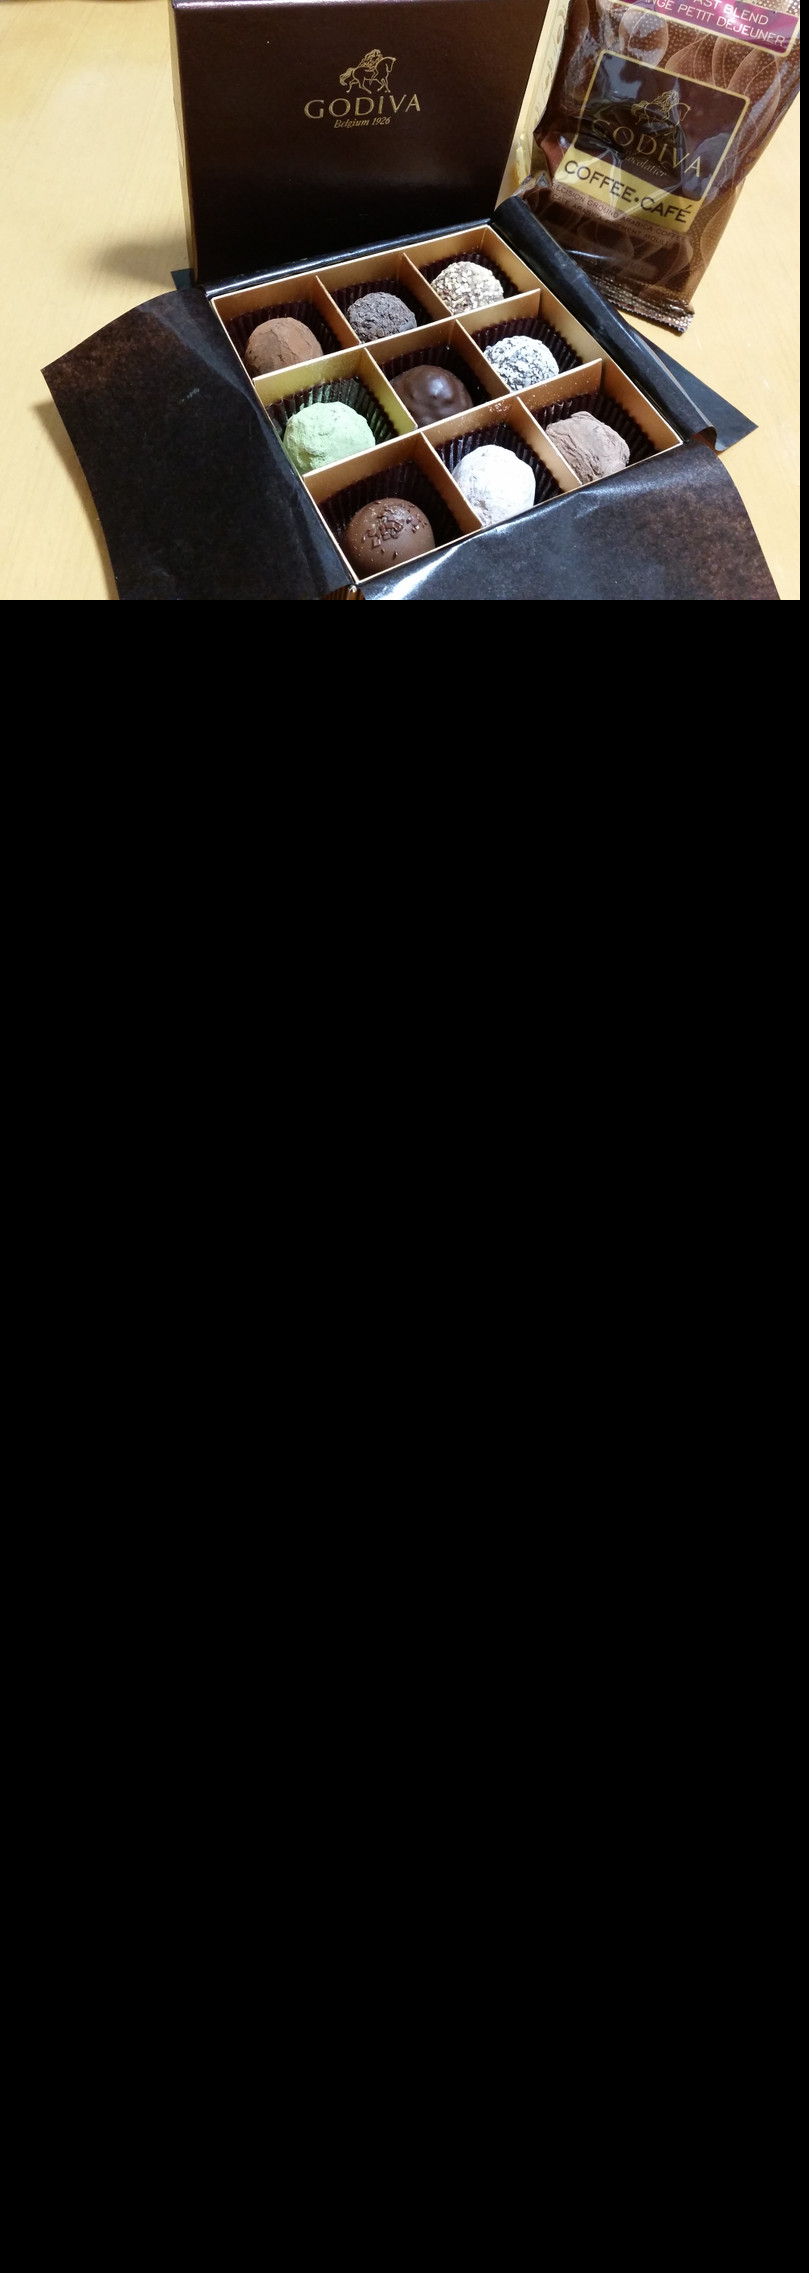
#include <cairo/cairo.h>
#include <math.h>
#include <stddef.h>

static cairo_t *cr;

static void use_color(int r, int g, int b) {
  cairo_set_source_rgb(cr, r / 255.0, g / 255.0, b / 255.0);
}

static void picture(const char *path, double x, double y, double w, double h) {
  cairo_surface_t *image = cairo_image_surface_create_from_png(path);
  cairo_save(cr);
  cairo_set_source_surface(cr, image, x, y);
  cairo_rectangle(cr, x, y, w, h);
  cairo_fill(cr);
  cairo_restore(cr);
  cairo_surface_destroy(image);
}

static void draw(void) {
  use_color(0, 0, 0);
  cairo_paint(cr);
  picture("img_01.png", 0, 0, 800, 600);
}

int main(void) {
  cairo_surface_t *surface = cairo_image_surface_create(CAIRO_FORMAT_RGB24, 809, 2273);
  cr = cairo_create(surface);
  cairo_font_options_t *options = cairo_font_options_create();
  cairo_font_options_set_hint_metrics(options, CAIRO_HINT_METRICS_OFF);
  cairo_font_options_set_hint_style(options, CAIRO_HINT_STYLE_NONE);
  cairo_set_font_options(cr, options);
  cairo_set_miter_limit(cr, 4);
  draw();
  cairo_surface_write_to_png(surface, "out.png");
  cairo_font_options_destroy(options);
  cairo_destroy(cr);
  cairo_surface_destroy(surface);
  return 0;
}
